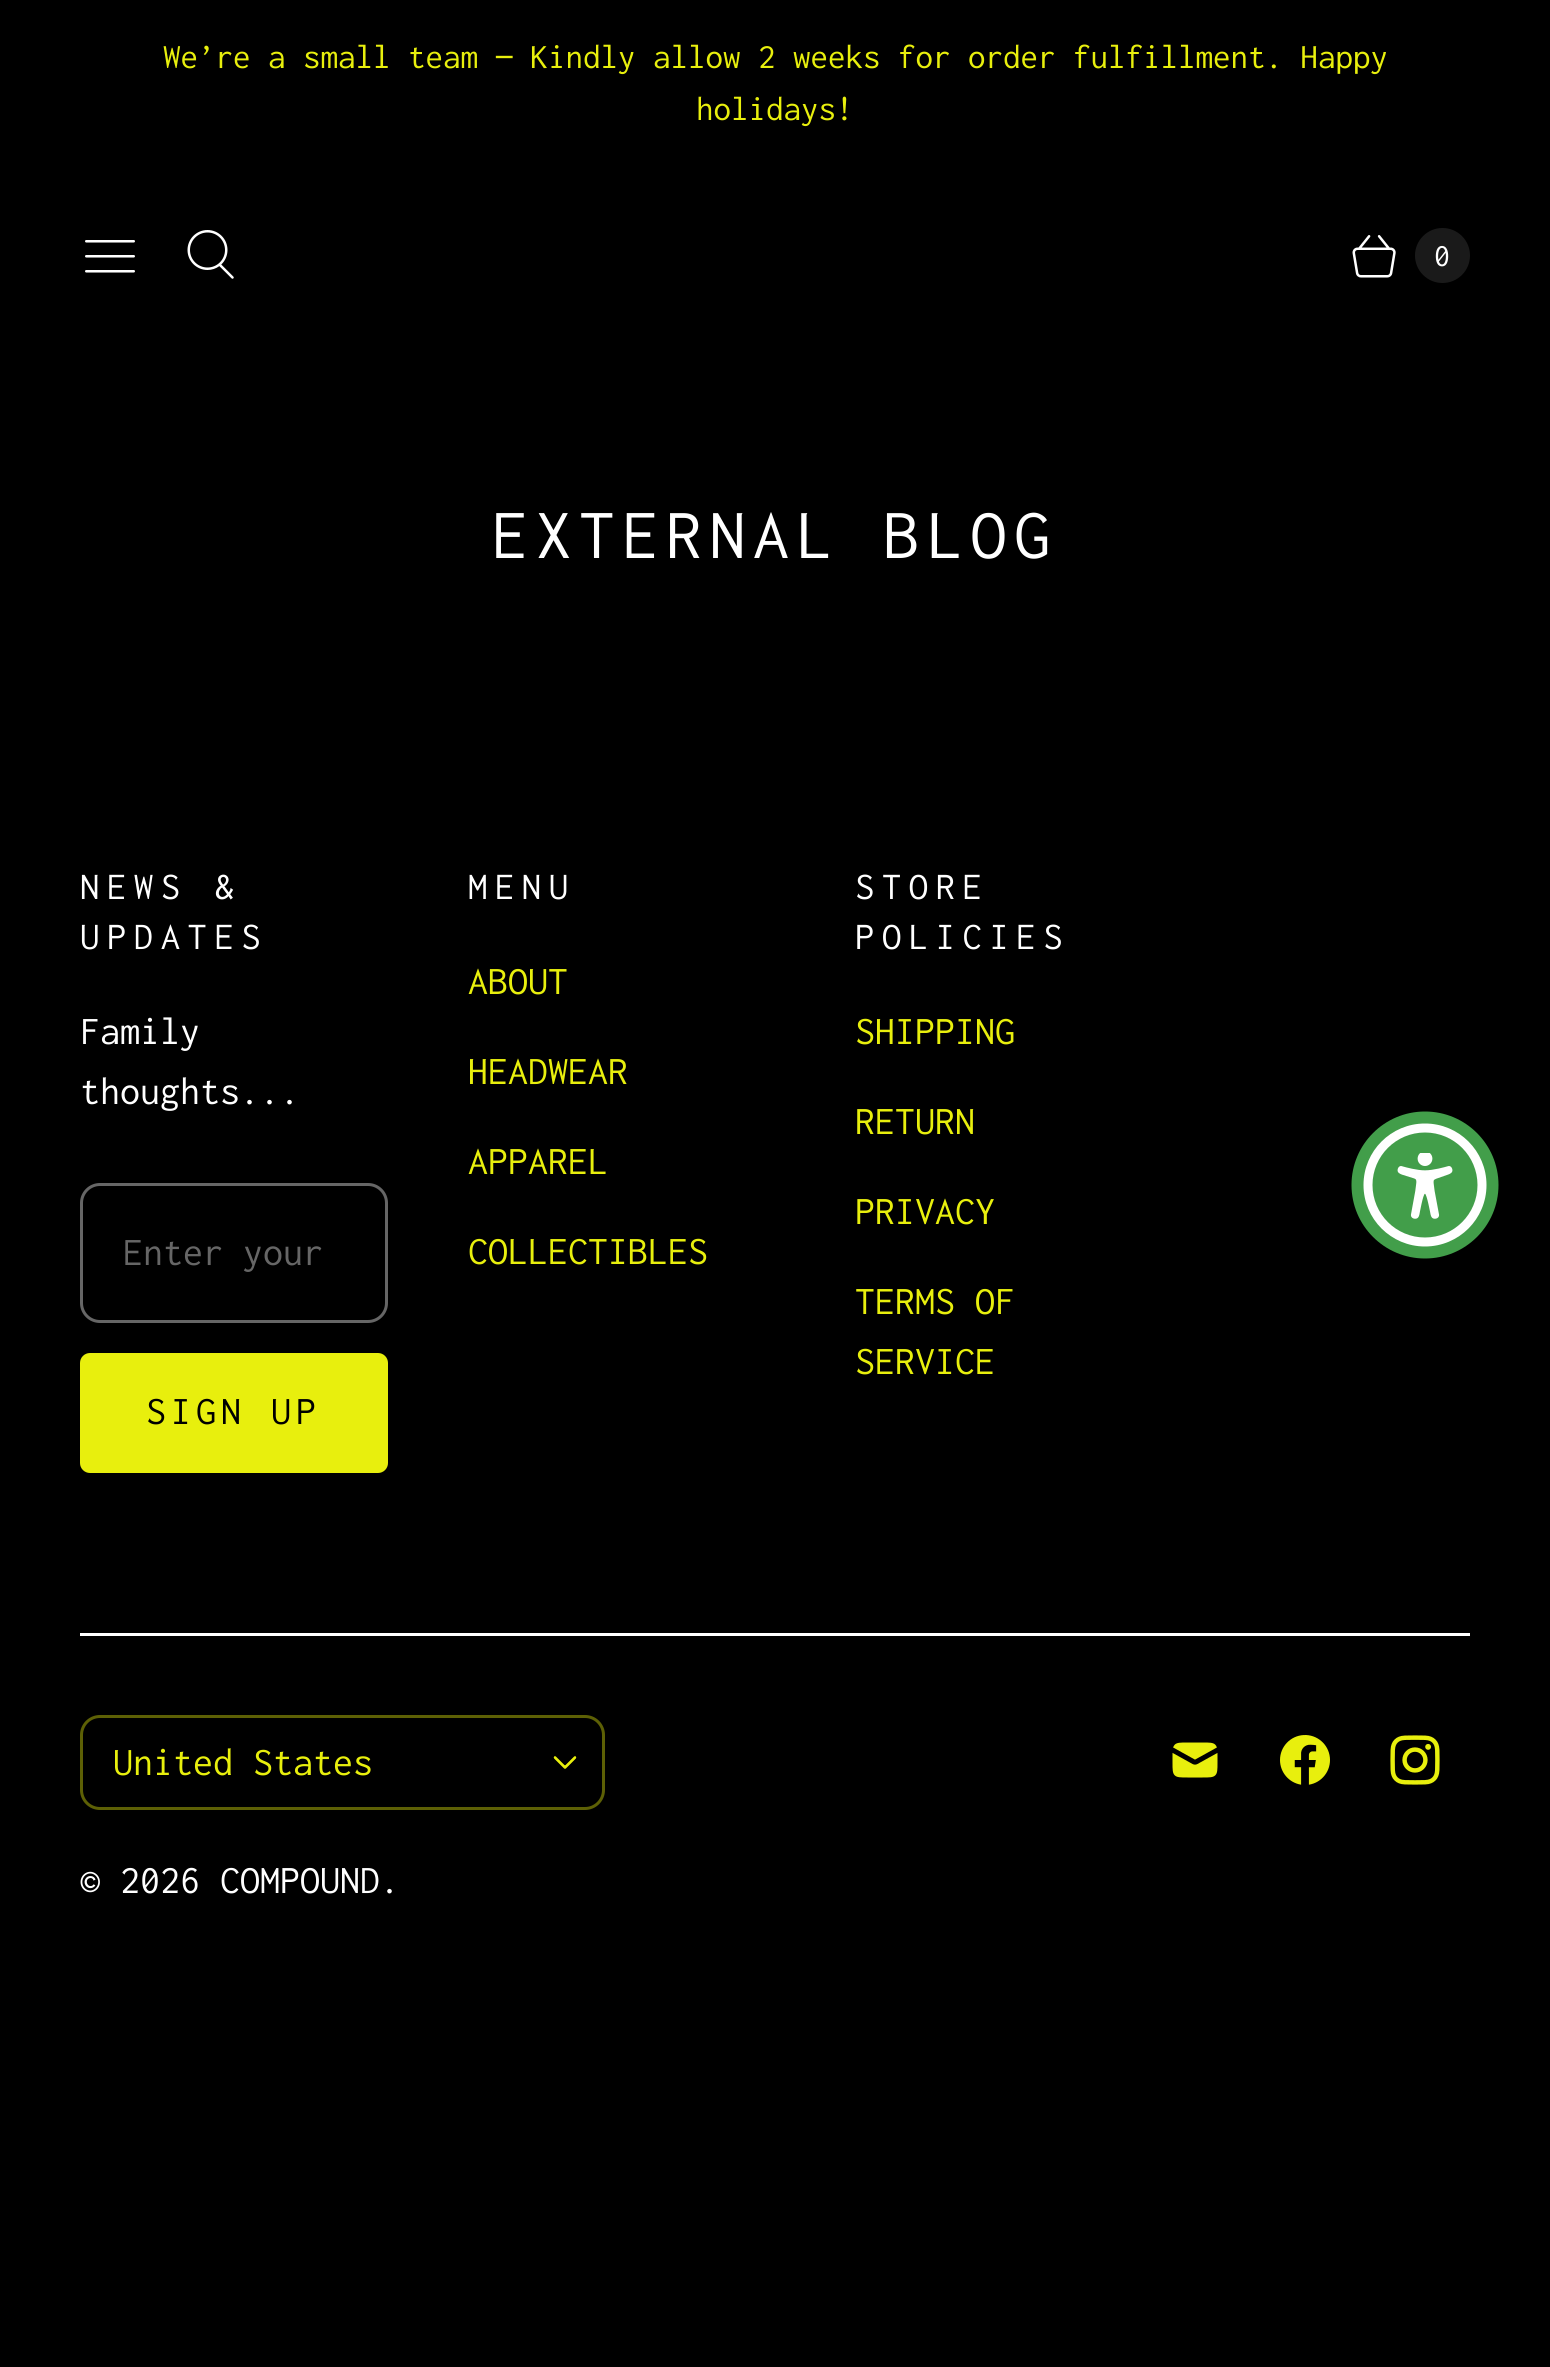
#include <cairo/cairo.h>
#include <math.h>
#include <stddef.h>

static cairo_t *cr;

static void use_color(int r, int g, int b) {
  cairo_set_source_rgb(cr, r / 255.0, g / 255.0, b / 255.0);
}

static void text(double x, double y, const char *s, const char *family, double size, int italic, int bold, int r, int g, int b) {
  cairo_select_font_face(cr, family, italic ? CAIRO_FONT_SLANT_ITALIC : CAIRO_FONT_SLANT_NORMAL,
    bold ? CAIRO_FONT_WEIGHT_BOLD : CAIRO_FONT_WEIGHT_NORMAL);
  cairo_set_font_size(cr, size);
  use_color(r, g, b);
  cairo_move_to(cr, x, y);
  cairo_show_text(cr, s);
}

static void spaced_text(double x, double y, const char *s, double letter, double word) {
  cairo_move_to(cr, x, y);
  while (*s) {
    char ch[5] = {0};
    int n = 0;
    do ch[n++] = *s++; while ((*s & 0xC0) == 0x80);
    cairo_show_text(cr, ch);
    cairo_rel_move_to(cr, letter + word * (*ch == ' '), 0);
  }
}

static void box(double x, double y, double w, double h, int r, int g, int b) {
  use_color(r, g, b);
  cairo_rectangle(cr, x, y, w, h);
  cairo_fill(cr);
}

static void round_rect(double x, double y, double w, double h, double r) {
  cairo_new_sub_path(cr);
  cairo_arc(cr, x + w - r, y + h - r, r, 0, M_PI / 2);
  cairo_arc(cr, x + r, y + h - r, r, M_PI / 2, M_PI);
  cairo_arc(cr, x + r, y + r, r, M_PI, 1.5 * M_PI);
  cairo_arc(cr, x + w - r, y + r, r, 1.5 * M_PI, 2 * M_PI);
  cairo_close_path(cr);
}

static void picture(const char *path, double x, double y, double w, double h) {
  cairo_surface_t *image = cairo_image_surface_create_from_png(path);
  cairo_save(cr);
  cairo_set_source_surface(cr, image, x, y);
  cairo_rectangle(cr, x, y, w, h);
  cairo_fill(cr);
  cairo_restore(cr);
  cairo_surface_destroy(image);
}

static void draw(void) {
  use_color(0, 0, 0);
  cairo_paint(cr);
  picture("img_01.png", 85, 240, 50, 33);
  picture("img_02.png", 187, 230, 47, 49);
  picture("img_03.png", 1352, 235, 44, 43);
  use_color(26, 26, 26);
  cairo_arc(cr, 1442.5, 255.5, 27.5, 0, 2 * M_PI);
  cairo_fill(cr);
  round_rect(81.5, 1184.5, 305, 137, 18.5);
  use_color(102, 102, 102);
  cairo_set_line_width(cr, 3);
  cairo_stroke(cr);
  use_color(232, 239, 13);
  round_rect(81.5, 1354.5, 305, 117, 8.5);
  cairo_fill_preserve(cr);
  cairo_stroke(cr);
  box(80, 1633, 1390, 3, 255, 255, 255);
  round_rect(81.5, 1716.5, 522, 92, 18.5);
  use_color(93, 96, 5);
  cairo_stroke(cr);
  picture("img_04.png", 553, 1756, 24, 13);
  picture("img_05.png", 1172, 1742, 46, 36);
  picture("img_06.png", 1280, 1735, 50, 50);
  picture("img_07.png", 1390, 1735, 50, 50);
  use_color(66, 158, 74);
  cairo_arc(cr, 1425, 1185, 73.5, 0, 2 * M_PI);
  cairo_fill(cr);
  use_color(255, 255, 255);
  cairo_arc(cr, 1425, 1185, 61.5, 0, 2 * M_PI);
  cairo_fill(cr);
  use_color(66, 158, 74);
  cairo_arc(cr, 1425, 1185, 52.5, 0, 2 * M_PI);
  cairo_fill(cr);
  picture("img_08.png", 1397, 1153, 56, 66);
  text(163, 68, "We’re a small team — Kindly allow 2 weeks for order fulfillment. Happy", "Inconsolata", 35, 0, 0, 232, 239, 13);
  text(696, 120, "holidays!", "Inconsolata", 35, 0, 0, 232, 239, 13);
  text(1434, 266, "0", "Inconsolata", 32, 0, 0, 255, 255, 255);
  cairo_set_font_size(cr, 72);
  spaced_text(492, 558, "EXTERNAL BLOG", 7.5, 0);
  cairo_set_font_size(cr, 38.75);
  spaced_text(80, 899, "NEWS &", 7.5, 0);
  spaced_text(80, 949, "UPDATES", 7.5, 0);
  text(80, 1044, "Family", "Inconsolata", 40, 0, 0, 255, 255, 255);
  text(80, 1104, "thoughts...", "Inconsolata", 40, 0, 0, 255, 255, 255);
  text(123, 1265, "Enter your", "Inconsolata", 40, 0, 0, 102, 102, 102);
  use_color(0, 0, 0);
  spaced_text(146, 1424, "SIGN UP", 5, 0);
  cairo_set_font_size(cr, 38.75);
  use_color(255, 255, 255);
  spaced_text(468, 899, "MENU", 7.5, 0);
  text(468, 994, "ABOUT", "Inconsolata", 40, 0, 0, 232, 239, 13);
  text(468, 1084, "HEADWEAR", "Inconsolata", 40, 0, 0, 232, 239, 13);
  text(468, 1174, "APPAREL", "Inconsolata", 40, 0, 0, 232, 239, 13);
  text(468, 1264, "COLLECTIBLES", "Inconsolata", 40, 0, 0, 232, 239, 13);
  cairo_set_font_size(cr, 38.75);
  use_color(255, 255, 255);
  spaced_text(855, 899, "STORE", 7.5, 0);
  spaced_text(855, 949, "POLICIES", 7.5, 0);
  text(855, 1044, "SHIPPING", "Inconsolata", 40, 0, 0, 232, 239, 13);
  text(855, 1134, "RETURN", "Inconsolata", 40, 0, 0, 232, 239, 13);
  text(855, 1224, "PRIVACY", "Inconsolata", 40, 0, 0, 232, 239, 13);
  text(855, 1314, "TERMS OF", "Inconsolata", 40, 0, 0, 232, 239, 13);
  text(855, 1374, "SERVICE", "Inconsolata", 40, 0, 0, 232, 239, 13);
  text(113, 1775, "United States", "Inconsolata", 40, 0, 0, 232, 239, 13);
  text(80, 1893, "© 2026 COMPOUND.", "Inconsolata", 40, 0, 0, 255, 255, 255);
}

int main(void) {
  cairo_surface_t *surface = cairo_image_surface_create(CAIRO_FORMAT_RGB24, 1550, 2367);
  cr = cairo_create(surface);
  cairo_font_options_t *options = cairo_font_options_create();
  cairo_font_options_set_hint_metrics(options, CAIRO_HINT_METRICS_OFF);
  cairo_font_options_set_hint_style(options, CAIRO_HINT_STYLE_NONE);
  cairo_set_font_options(cr, options);
  cairo_set_miter_limit(cr, 4);
  draw();
  cairo_surface_write_to_png(surface, "out.png");
  cairo_font_options_destroy(options);
  cairo_destroy(cr);
  cairo_surface_destroy(surface);
  return 0;
}
